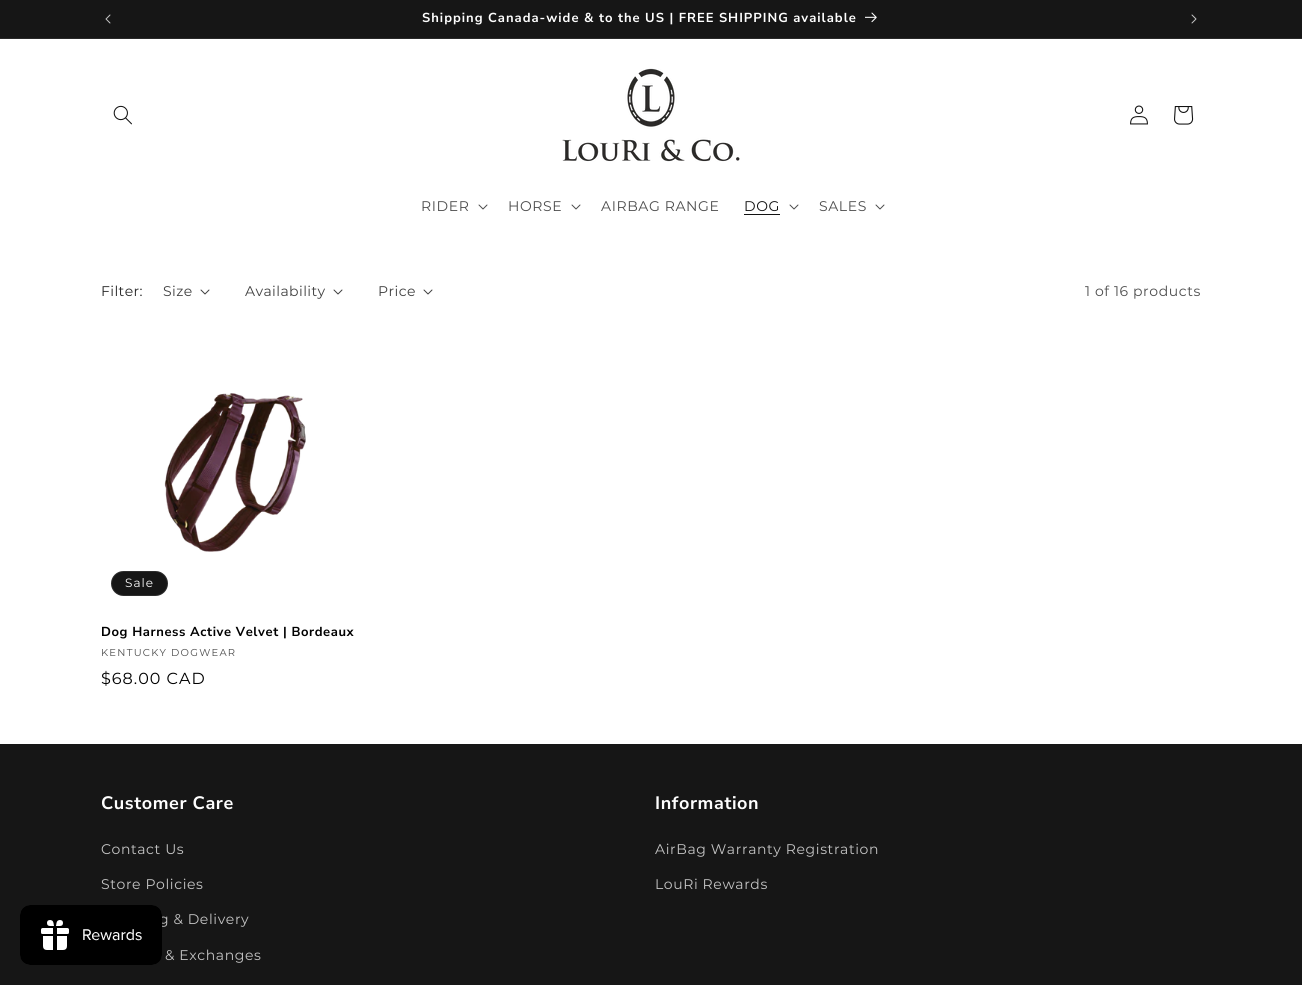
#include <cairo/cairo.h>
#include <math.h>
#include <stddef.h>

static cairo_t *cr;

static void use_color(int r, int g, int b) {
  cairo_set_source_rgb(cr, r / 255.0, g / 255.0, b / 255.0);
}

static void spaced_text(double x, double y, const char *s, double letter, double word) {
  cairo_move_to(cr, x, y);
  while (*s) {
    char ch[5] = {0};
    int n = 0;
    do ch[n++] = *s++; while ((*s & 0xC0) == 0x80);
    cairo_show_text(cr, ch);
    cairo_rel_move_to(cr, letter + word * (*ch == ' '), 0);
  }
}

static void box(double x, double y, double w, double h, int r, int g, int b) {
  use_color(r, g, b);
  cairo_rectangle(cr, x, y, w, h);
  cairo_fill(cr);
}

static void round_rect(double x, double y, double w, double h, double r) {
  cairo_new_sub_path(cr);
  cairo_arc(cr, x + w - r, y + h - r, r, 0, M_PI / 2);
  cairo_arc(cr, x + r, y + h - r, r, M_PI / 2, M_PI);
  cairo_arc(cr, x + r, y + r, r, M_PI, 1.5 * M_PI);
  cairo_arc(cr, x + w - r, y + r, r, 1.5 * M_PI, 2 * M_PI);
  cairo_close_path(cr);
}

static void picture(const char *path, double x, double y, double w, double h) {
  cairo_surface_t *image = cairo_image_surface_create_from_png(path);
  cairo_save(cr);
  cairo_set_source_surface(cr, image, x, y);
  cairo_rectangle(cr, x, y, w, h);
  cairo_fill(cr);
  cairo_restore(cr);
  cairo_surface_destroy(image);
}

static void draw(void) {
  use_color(255, 255, 255);
  cairo_paint(cr);
  box(0, 0, 1302, 38, 22, 22, 22);
  box(0, 38, 1302, 1, 41, 41, 41);
  picture("img_01.png", 105, 14, 6, 10);
  picture("img_02.png", 865, 12, 12, 11);
  picture("img_03.png", 1191, 14, 6, 10);
  picture("img_04.png", 113, 105, 19, 20);
  picture("img_05.png", 562, 68, 178, 94);
  picture("img_06.png", 1130, 105, 18, 20);
  picture("img_07.png", 1174, 106, 20, 19);
  picture("img_08.png", 478, 204, 10, 6);
  picture("img_08.png", 571, 204, 10, 6);
  box(744, 214, 36, 1, 18, 18, 18);
  picture("img_08.png", 789, 204, 10, 6);
  picture("img_08.png", 875, 204, 10, 6);
  picture("img_09.png", 200, 289, 10, 6);
  picture("img_09.png", 333, 289, 10, 6);
  picture("img_09.png", 423, 289, 10, 6);
  picture("img_10.png", 164, 393, 142, 159);
  use_color(22, 22, 22);
  round_rect(111, 571, 57, 25, 12.5);
  cairo_fill(cr);
  round_rect(111.5, 571.5, 56, 24, 12);
  cairo_set_source_rgba(cr, 0.996, 0.996, 0.996, 0.1);
  cairo_set_line_width(cr, 1);
  cairo_stroke(cr);
  box(0, 744, 1302, 241, 22, 22, 22);
  cairo_select_font_face(cr, "Nunito Sans", CAIRO_FONT_SLANT_NORMAL, CAIRO_FONT_WEIGHT_BOLD);
  cairo_set_font_size(cr, 13);
  use_color(254, 254, 254);
  spaced_text(422, 22, "Shipping Canada-wide & to the US | FREE SHIPPING available", 1, 0);
  cairo_select_font_face(cr, "Montserrat", CAIRO_FONT_SLANT_NORMAL, CAIRO_FONT_WEIGHT_NORMAL);
  cairo_set_font_size(cr, 14);
  use_color(77, 77, 77);
  spaced_text(421, 211, "RIDER", 0.6, 0);
  spaced_text(508, 211, "HORSE", 0.6, 0);
  spaced_text(601, 211, "AIRBAG RANGE", 0.6, 0);
  use_color(18, 18, 18);
  spaced_text(744, 211, "DOG", 0.6, 0);
  use_color(77, 77, 77);
  spaced_text(819, 211, "SALES", 0.6, 0);
  use_color(38, 38, 38);
  spaced_text(101, 296, "Filter:", 0.4, 0);
  use_color(64, 64, 64);
  spaced_text(163, 296, "Size", 0.4, 0);
  spaced_text(245, 296, "Availability", 0.4, 0);
  spaced_text(378, 296, "Price", 0.4, 0);
  use_color(77, 77, 77);
  spaced_text(1085, 296, "1 of 16 products", 0.6, 0);
  cairo_set_font_size(cr, 12);
  use_color(254, 254, 254);
  spaced_text(125, 587, "Sale", 1, 0);
  cairo_select_font_face(cr, "Nunito Sans", CAIRO_FONT_SLANT_NORMAL, CAIRO_FONT_WEIGHT_BOLD);
  cairo_set_font_size(cr, 13);
  use_color(0, 0, 0);
  spaced_text(101, 636, "Dog Harness Active Velvet | Bordeaux", 0.6, 0);
  cairo_select_font_face(cr, "Montserrat", CAIRO_FONT_SLANT_NORMAL, CAIRO_FONT_WEIGHT_NORMAL);
  cairo_set_font_size(cr, 10);
  use_color(77, 77, 77);
  spaced_text(101, 656, "KENTUCKY DOGWEAR", 1.25, 0);
  cairo_set_font_size(cr, 16);
  use_color(0, 0, 0);
  spaced_text(101, 684, "$68.00 CAD", 1, 0);
  cairo_select_font_face(cr, "Nunito Sans", CAIRO_FONT_SLANT_NORMAL, CAIRO_FONT_WEIGHT_BOLD);
  cairo_set_font_size(cr, 18);
  use_color(254, 254, 254);
  spaced_text(101, 809, "Customer Care", 0.6, 0);
  cairo_select_font_face(cr, "Montserrat", CAIRO_FONT_SLANT_NORMAL, CAIRO_FONT_WEIGHT_NORMAL);
  cairo_set_font_size(cr, 14);
  use_color(196, 196, 196);
  spaced_text(101, 854, "Contact Us", 0.6, 0);
  spaced_text(101, 889, "Store Policies", 0.6, 0);
  spaced_text(159, 924, "g & Delivery", 0.6, 0);
  picture("img_11.png", 20, 905, 142, 60);
  spaced_text(165, 960, "& Exchanges", 0.6, 0);
  cairo_select_font_face(cr, "Nunito Sans", CAIRO_FONT_SLANT_NORMAL, CAIRO_FONT_WEIGHT_BOLD);
  cairo_set_font_size(cr, 18);
  use_color(254, 254, 254);
  spaced_text(655, 809, "Information", 0.6, 0);
  cairo_select_font_face(cr, "Montserrat", CAIRO_FONT_SLANT_NORMAL, CAIRO_FONT_WEIGHT_NORMAL);
  cairo_set_font_size(cr, 14);
  use_color(196, 196, 196);
  spaced_text(655, 854, "AirBag Warranty Registration", 0.6, 0);
  spaced_text(655, 889, "LouRi Rewards", 0.6, 0);
}

int main(void) {
  cairo_surface_t *surface = cairo_image_surface_create(CAIRO_FORMAT_RGB24, 1302, 985);
  cr = cairo_create(surface);
  cairo_font_options_t *options = cairo_font_options_create();
  cairo_font_options_set_hint_metrics(options, CAIRO_HINT_METRICS_OFF);
  cairo_font_options_set_hint_style(options, CAIRO_HINT_STYLE_NONE);
  cairo_set_font_options(cr, options);
  cairo_set_miter_limit(cr, 4);
  draw();
  cairo_surface_write_to_png(surface, "out.png");
  cairo_font_options_destroy(options);
  cairo_destroy(cr);
  cairo_surface_destroy(surface);
  return 0;
}
